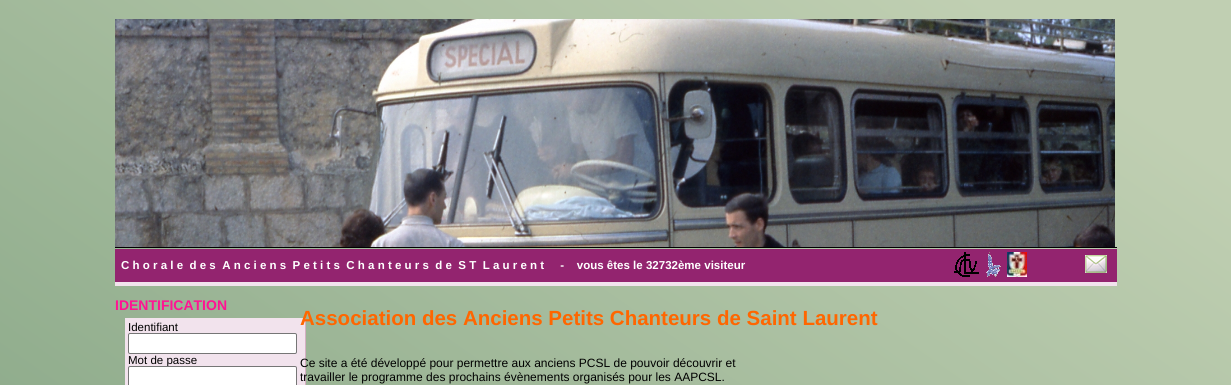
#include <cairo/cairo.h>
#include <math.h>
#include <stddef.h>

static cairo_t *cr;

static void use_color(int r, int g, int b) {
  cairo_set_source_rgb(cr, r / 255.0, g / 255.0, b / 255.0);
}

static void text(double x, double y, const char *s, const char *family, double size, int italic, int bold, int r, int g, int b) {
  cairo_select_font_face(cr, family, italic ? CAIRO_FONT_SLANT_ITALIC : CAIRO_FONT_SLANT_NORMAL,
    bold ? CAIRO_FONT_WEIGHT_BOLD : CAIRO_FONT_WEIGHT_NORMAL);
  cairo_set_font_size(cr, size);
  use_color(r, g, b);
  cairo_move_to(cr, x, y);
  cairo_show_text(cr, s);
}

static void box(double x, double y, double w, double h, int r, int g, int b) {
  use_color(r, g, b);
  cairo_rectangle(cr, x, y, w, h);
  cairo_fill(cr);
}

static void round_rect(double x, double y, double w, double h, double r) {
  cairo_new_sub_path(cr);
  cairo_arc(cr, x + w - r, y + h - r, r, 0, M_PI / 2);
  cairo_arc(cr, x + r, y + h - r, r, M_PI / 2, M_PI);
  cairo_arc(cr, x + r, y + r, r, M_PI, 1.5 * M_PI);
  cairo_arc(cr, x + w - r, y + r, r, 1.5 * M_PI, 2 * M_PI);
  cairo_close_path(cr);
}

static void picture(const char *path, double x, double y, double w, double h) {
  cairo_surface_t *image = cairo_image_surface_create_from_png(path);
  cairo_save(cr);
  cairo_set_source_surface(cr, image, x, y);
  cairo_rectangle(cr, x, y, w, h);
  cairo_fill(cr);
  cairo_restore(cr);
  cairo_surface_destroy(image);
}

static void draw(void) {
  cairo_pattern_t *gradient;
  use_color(255, 255, 255);
  cairo_paint(cr);
  gradient = cairo_pattern_create_linear(1016, -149, 215, 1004);
  cairo_pattern_add_color_stop_rgba(gradient, 0.1, 0.753, 0.812, 0.698, 1);
  cairo_pattern_add_color_stop_rgba(gradient, 0.8, 0.545, 0.663, 0.537, 1);
  cairo_set_source(cr, gradient);
  cairo_pattern_destroy(gradient);
  cairo_rectangle(cr, 0, 0, 1231, 385);
  cairo_fill(cr);
  box(115, 247, 1002, 1, 0, 0, 0);
  picture("img_01.png", 115, 19, 1000, 228);
  box(115, 249, 1002, 33, 147, 36, 111);
  box(115, 282, 1002, 4, 242, 227, 237);
  picture("img_02.png", 954, 252, 25, 25);
  picture("img_03.png", 986, 252, 15, 25);
  picture("img_04.png", 1007, 252, 20, 25);
  picture("img_05.png", 1085, 255, 22, 18);
  box(125, 318, 180, 67, 242, 227, 237);
  box(305, 318, 1, 67, 212, 176, 195);
  use_color(255, 255, 255);
  round_rect(128.5, 333.5, 168, 20, 1.5);
  cairo_fill_preserve(cr);
  use_color(118, 118, 118);
  cairo_set_line_width(cr, 1);
  cairo_stroke(cr);
  text(121, 269, "C h o r a l e  d e s  A n c i e n s  P e t i t s  C h a n t e u r s  d e  S T  L a u r e n t     -    vous êtes le 32732ème visiteur", "Liberation Sans", 11.52, 0, 1, 255, 255, 255);
  text(115, 310, "IDENTIFICATION", "Liberation Sans", 14, 0, 1, 255, 20, 147);
  text(128, 331, "Identifiant", "Liberation Sans", 11.52, 0, 0, 0, 0, 0);
  text(128, 364, "Mot de passe", "Liberation Sans", 11.52, 0, 0, 0, 0, 0);
  use_color(255, 255, 255);
  round_rect(128.5, 366.5, 168, 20, 1.5);
  cairo_fill_preserve(cr);
  use_color(118, 118, 118);
  cairo_stroke(cr);
  text(300, 325, "Association des Anciens Petits Chanteurs de Saint Laurent", "Liberation Sans", 20.5, 0, 1, 255, 102, 0);
  text(300, 367, "Ce site a été développé pour permettre aux anciens PCSL de pouvoir découvrir et", "Liberation Sans", 12, 0, 0, 0, 0, 0);
  text(300, 381, "travailler le programme des prochains évènements organisés pour les AAPCSL.", "Liberation Sans", 12, 0, 0, 0, 0, 0);
}

int main(void) {
  cairo_surface_t *surface = cairo_image_surface_create(CAIRO_FORMAT_RGB24, 1231, 385);
  cr = cairo_create(surface);
  cairo_font_options_t *options = cairo_font_options_create();
  cairo_font_options_set_hint_metrics(options, CAIRO_HINT_METRICS_OFF);
  cairo_font_options_set_hint_style(options, CAIRO_HINT_STYLE_NONE);
  cairo_set_font_options(cr, options);
  cairo_set_miter_limit(cr, 4);
  draw();
  cairo_surface_write_to_png(surface, "out.png");
  cairo_font_options_destroy(options);
  cairo_destroy(cr);
  cairo_surface_destroy(surface);
  return 0;
}
